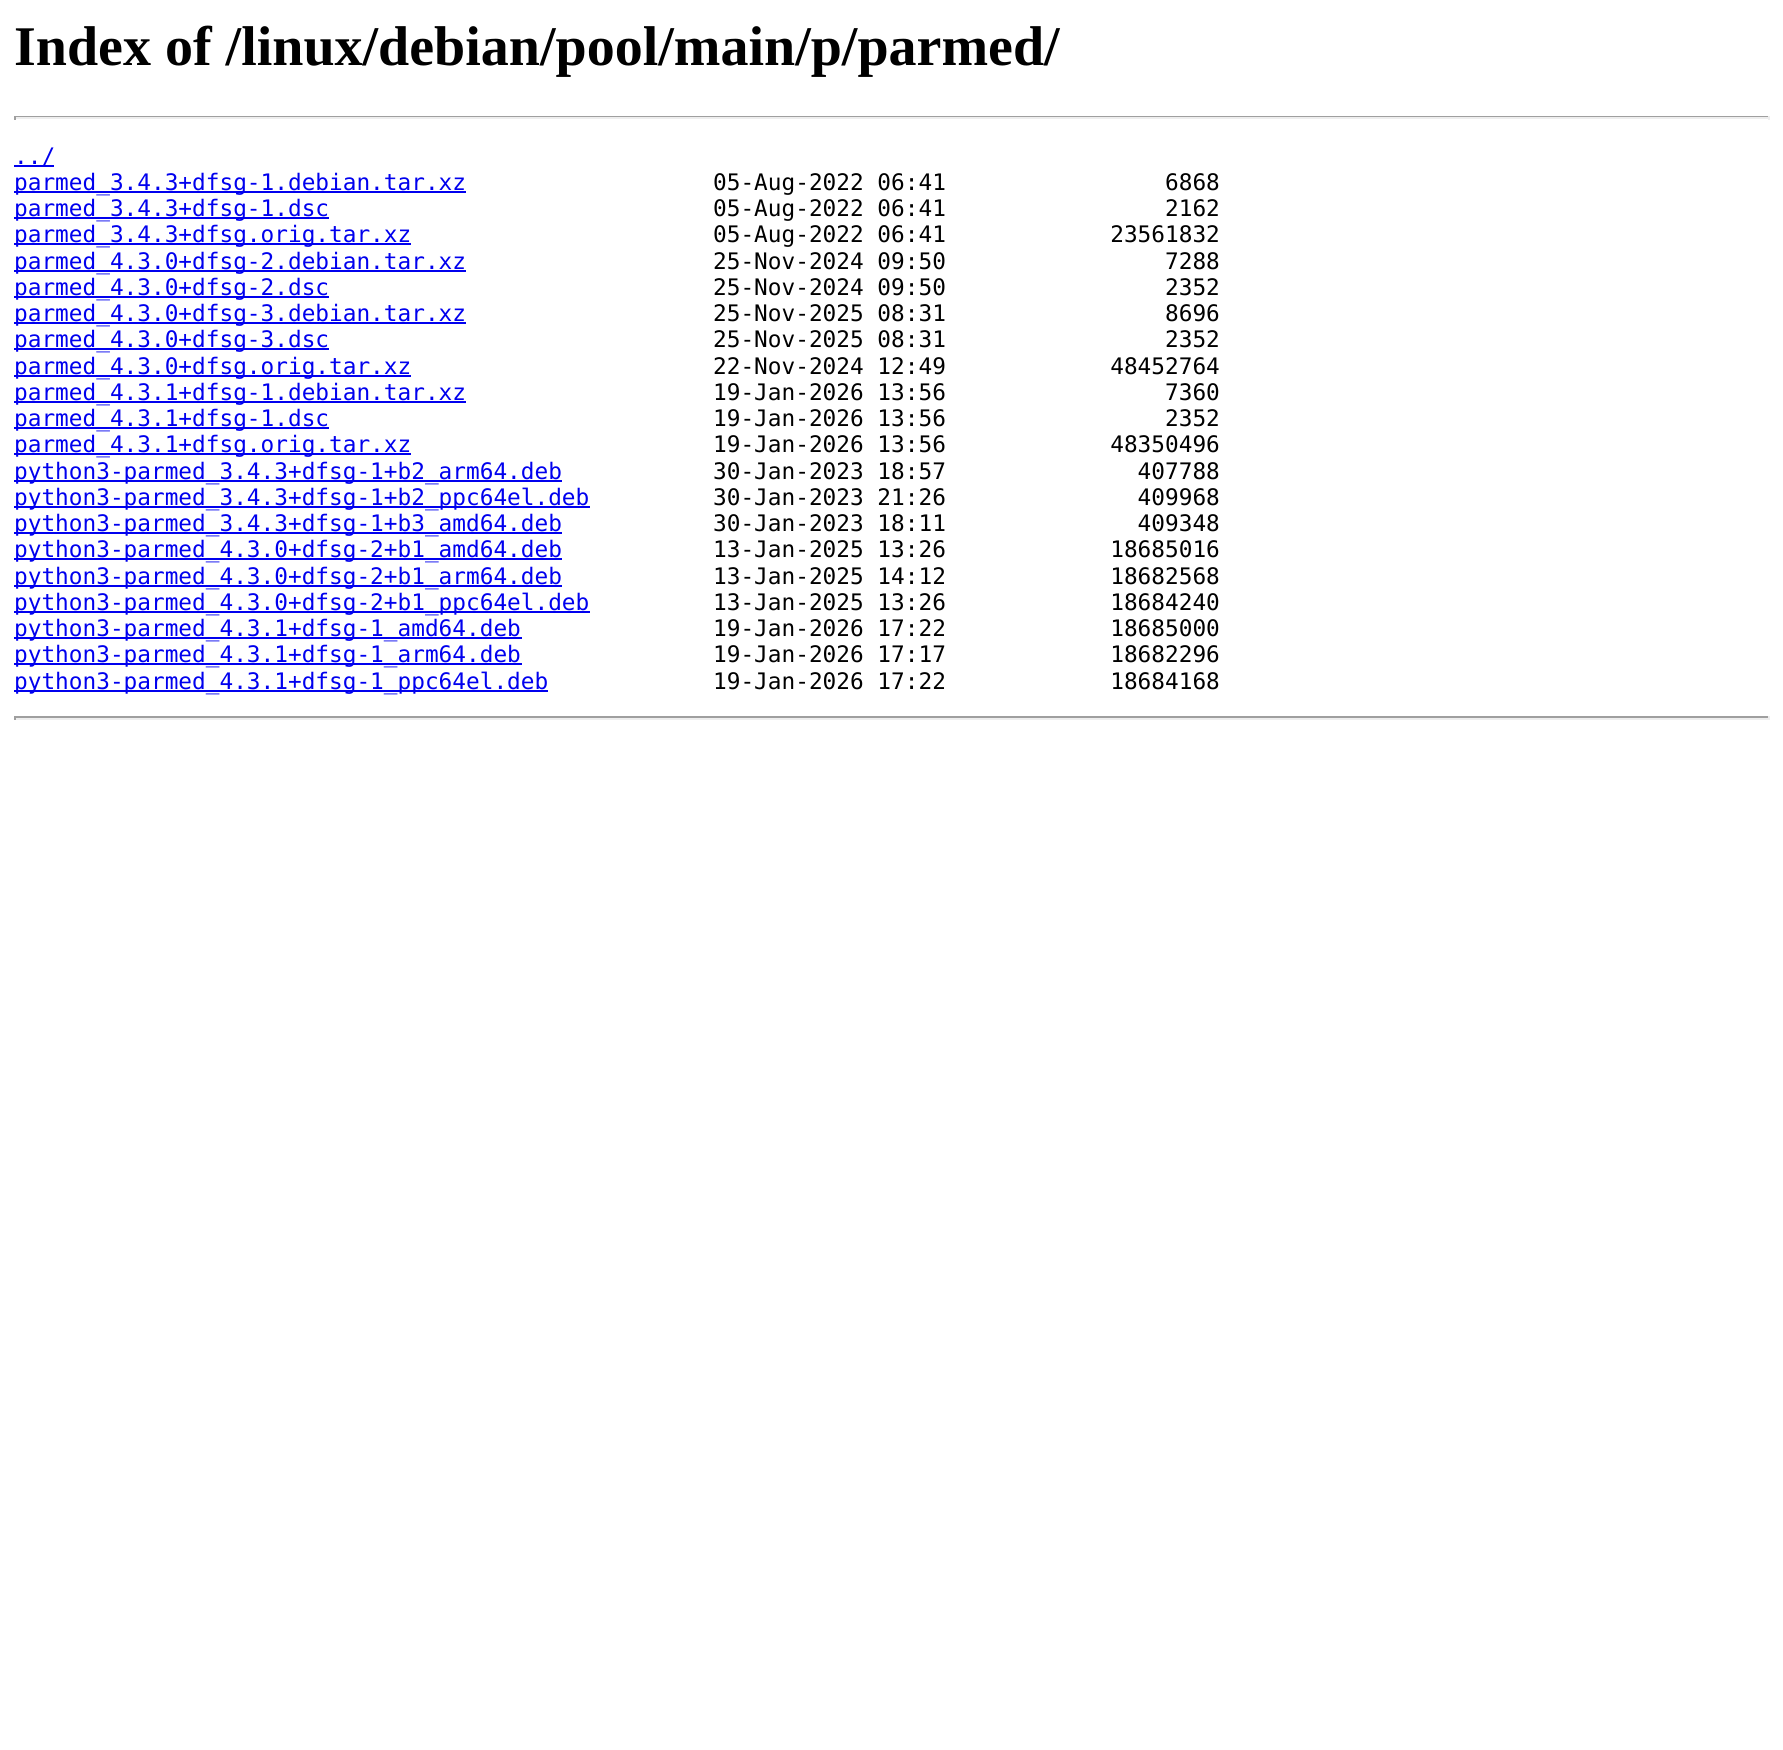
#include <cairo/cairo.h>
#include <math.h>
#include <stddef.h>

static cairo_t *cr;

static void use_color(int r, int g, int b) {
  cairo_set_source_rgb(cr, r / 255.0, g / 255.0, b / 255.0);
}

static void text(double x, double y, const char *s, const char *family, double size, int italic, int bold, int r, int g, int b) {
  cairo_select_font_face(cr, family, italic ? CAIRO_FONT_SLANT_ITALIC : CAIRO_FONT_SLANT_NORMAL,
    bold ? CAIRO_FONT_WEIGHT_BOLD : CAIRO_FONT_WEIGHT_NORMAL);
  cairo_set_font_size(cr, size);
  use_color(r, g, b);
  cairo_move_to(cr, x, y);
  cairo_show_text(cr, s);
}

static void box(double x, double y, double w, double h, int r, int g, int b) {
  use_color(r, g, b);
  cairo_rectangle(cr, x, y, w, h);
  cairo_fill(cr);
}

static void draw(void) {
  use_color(255, 255, 255);
  cairo_paint(cr);
  box(14, 116, 1755, 1, 159, 159, 159);
  box(1768, 116, 2, 4, 238, 238, 238);
  box(14, 117, 1755, 2, 238, 238, 238);
  box(14, 116, 2, 4, 159, 159, 159);
  box(14, 165, 40, 2, 0, 0, 238);
  box(14, 191, 452, 2, 0, 0, 238);
  box(14, 217, 315, 2, 0, 0, 238);
  box(14, 243, 397, 2, 0, 0, 238);
  box(14, 270, 452, 2, 0, 0, 238);
  box(14, 296, 315, 2, 0, 0, 238);
  box(14, 322, 452, 2, 0, 0, 238);
  box(14, 348, 315, 2, 0, 0, 238);
  box(14, 375, 397, 2, 0, 0, 238);
  box(14, 401, 452, 2, 0, 0, 238);
  box(14, 427, 315, 2, 0, 0, 238);
  box(14, 453, 397, 2, 0, 0, 238);
  box(14, 480, 548, 2, 0, 0, 238);
  box(14, 506, 576, 2, 0, 0, 238);
  box(14, 532, 548, 2, 0, 0, 238);
  box(14, 558, 548, 2, 0, 0, 238);
  box(14, 585, 548, 2, 0, 0, 238);
  box(14, 611, 576, 2, 0, 0, 238);
  box(14, 637, 508, 2, 0, 0, 238);
  box(14, 663, 508, 2, 0, 0, 238);
  box(14, 690, 534, 2, 0, 0, 238);
  box(14, 716, 1755, 2, 159, 159, 159);
  box(1768, 716, 2, 4, 238, 238, 238);
  box(14, 718, 1755, 2, 238, 238, 238);
  box(14, 716, 2, 4, 159, 159, 159);
  text(14, 65, "Index of /linux/debian/pool/main/p/parmed/", "Liberation Serif", 56, 0, 1, 0, 0, 0);
  text(14, 164, "../", "DejaVu Sans Mono", 22.75, 0, 0, 0, 0, 238);
  text(14, 190, "parmed_3.4.3+dfsg-1.debian.tar.xz", "DejaVu Sans Mono", 22.75, 0, 0, 0, 0, 238);
  text(713, 190, "05-Aug-2022 06:41                6868", "DejaVu Sans Mono", 22.75, 0, 0, 0, 0, 0);
  text(14, 216, "parmed_3.4.3+dfsg-1.dsc", "DejaVu Sans Mono", 22.75, 0, 0, 0, 0, 238);
  text(713, 216, "05-Aug-2022 06:41                2162", "DejaVu Sans Mono", 22.75, 0, 0, 0, 0, 0);
  text(14, 242, "parmed_3.4.3+dfsg.orig.tar.xz", "DejaVu Sans Mono", 22.75, 0, 0, 0, 0, 238);
  text(713, 242, "05-Aug-2022 06:41            23561832", "DejaVu Sans Mono", 22.75, 0, 0, 0, 0, 0);
  text(14, 269, "parmed_4.3.0+dfsg-2.debian.tar.xz", "DejaVu Sans Mono", 22.75, 0, 0, 0, 0, 238);
  text(713, 269, "25-Nov-2024 09:50                7288", "DejaVu Sans Mono", 22.75, 0, 0, 0, 0, 0);
  text(14, 295, "parmed_4.3.0+dfsg-2.dsc", "DejaVu Sans Mono", 22.75, 0, 0, 0, 0, 238);
  text(713, 295, "25-Nov-2024 09:50                2352", "DejaVu Sans Mono", 22.75, 0, 0, 0, 0, 0);
  text(14, 321, "parmed_4.3.0+dfsg-3.debian.tar.xz", "DejaVu Sans Mono", 22.75, 0, 0, 0, 0, 238);
  text(713, 321, "25-Nov-2025 08:31                8696", "DejaVu Sans Mono", 22.75, 0, 0, 0, 0, 0);
  text(14, 347, "parmed_4.3.0+dfsg-3.dsc", "DejaVu Sans Mono", 22.75, 0, 0, 0, 0, 238);
  text(713, 347, "25-Nov-2025 08:31                2352", "DejaVu Sans Mono", 22.75, 0, 0, 0, 0, 0);
  text(14, 374, "parmed_4.3.0+dfsg.orig.tar.xz", "DejaVu Sans Mono", 22.75, 0, 0, 0, 0, 238);
  text(713, 374, "22-Nov-2024 12:49            48452764", "DejaVu Sans Mono", 22.75, 0, 0, 0, 0, 0);
  text(14, 400, "parmed_4.3.1+dfsg-1.debian.tar.xz", "DejaVu Sans Mono", 22.75, 0, 0, 0, 0, 238);
  text(713, 400, "19-Jan-2026 13:56                7360", "DejaVu Sans Mono", 22.75, 0, 0, 0, 0, 0);
  text(14, 426, "parmed_4.3.1+dfsg-1.dsc", "DejaVu Sans Mono", 22.75, 0, 0, 0, 0, 238);
  text(713, 426, "19-Jan-2026 13:56                2352", "DejaVu Sans Mono", 22.75, 0, 0, 0, 0, 0);
  text(14, 452, "parmed_4.3.1+dfsg.orig.tar.xz", "DejaVu Sans Mono", 22.75, 0, 0, 0, 0, 238);
  text(713, 452, "19-Jan-2026 13:56            48350496", "DejaVu Sans Mono", 22.75, 0, 0, 0, 0, 0);
  text(14, 479, "python3-parmed_3.4.3+dfsg-1+b2_arm64.deb", "DejaVu Sans Mono", 22.75, 0, 0, 0, 0, 238);
  text(713, 479, "30-Jan-2023 18:57              407788", "DejaVu Sans Mono", 22.75, 0, 0, 0, 0, 0);
  text(14, 505, "python3-parmed_3.4.3+dfsg-1+b2_ppc64el.deb", "DejaVu Sans Mono", 22.75, 0, 0, 0, 0, 238);
  text(713, 505, "30-Jan-2023 21:26              409968", "DejaVu Sans Mono", 22.75, 0, 0, 0, 0, 0);
  text(14, 531, "python3-parmed_3.4.3+dfsg-1+b3_amd64.deb", "DejaVu Sans Mono", 22.75, 0, 0, 0, 0, 238);
  text(713, 531, "30-Jan-2023 18:11              409348", "DejaVu Sans Mono", 22.75, 0, 0, 0, 0, 0);
  text(14, 557, "python3-parmed_4.3.0+dfsg-2+b1_amd64.deb", "DejaVu Sans Mono", 22.75, 0, 0, 0, 0, 238);
  text(713, 557, "13-Jan-2025 13:26            18685016", "DejaVu Sans Mono", 22.75, 0, 0, 0, 0, 0);
  text(14, 584, "python3-parmed_4.3.0+dfsg-2+b1_arm64.deb", "DejaVu Sans Mono", 22.75, 0, 0, 0, 0, 238);
  text(713, 584, "13-Jan-2025 14:12            18682568", "DejaVu Sans Mono", 22.75, 0, 0, 0, 0, 0);
  text(14, 610, "python3-parmed_4.3.0+dfsg-2+b1_ppc64el.deb", "DejaVu Sans Mono", 22.75, 0, 0, 0, 0, 238);
  text(713, 610, "13-Jan-2025 13:26            18684240", "DejaVu Sans Mono", 22.75, 0, 0, 0, 0, 0);
  text(14, 636, "python3-parmed_4.3.1+dfsg-1_amd64.deb", "DejaVu Sans Mono", 22.75, 0, 0, 0, 0, 238);
  text(713, 636, "19-Jan-2026 17:22            18685000", "DejaVu Sans Mono", 22.75, 0, 0, 0, 0, 0);
  text(14, 662, "python3-parmed_4.3.1+dfsg-1_arm64.deb", "DejaVu Sans Mono", 22.75, 0, 0, 0, 0, 238);
  text(713, 662, "19-Jan-2026 17:17            18682296", "DejaVu Sans Mono", 22.75, 0, 0, 0, 0, 0);
  text(14, 689, "python3-parmed_4.3.1+dfsg-1_ppc64el.deb", "DejaVu Sans Mono", 22.75, 0, 0, 0, 0, 238);
  text(713, 689, "19-Jan-2026 17:22            18684168", "DejaVu Sans Mono", 22.75, 0, 0, 0, 0, 0);
}

int main(void) {
  cairo_surface_t *surface = cairo_image_surface_create(CAIRO_FORMAT_RGB24, 1783, 1750);
  cr = cairo_create(surface);
  cairo_font_options_t *options = cairo_font_options_create();
  cairo_font_options_set_hint_metrics(options, CAIRO_HINT_METRICS_OFF);
  cairo_font_options_set_hint_style(options, CAIRO_HINT_STYLE_NONE);
  cairo_set_font_options(cr, options);
  cairo_set_miter_limit(cr, 4);
  draw();
  cairo_surface_write_to_png(surface, "out.png");
  cairo_font_options_destroy(options);
  cairo_destroy(cr);
  cairo_surface_destroy(surface);
  return 0;
}
